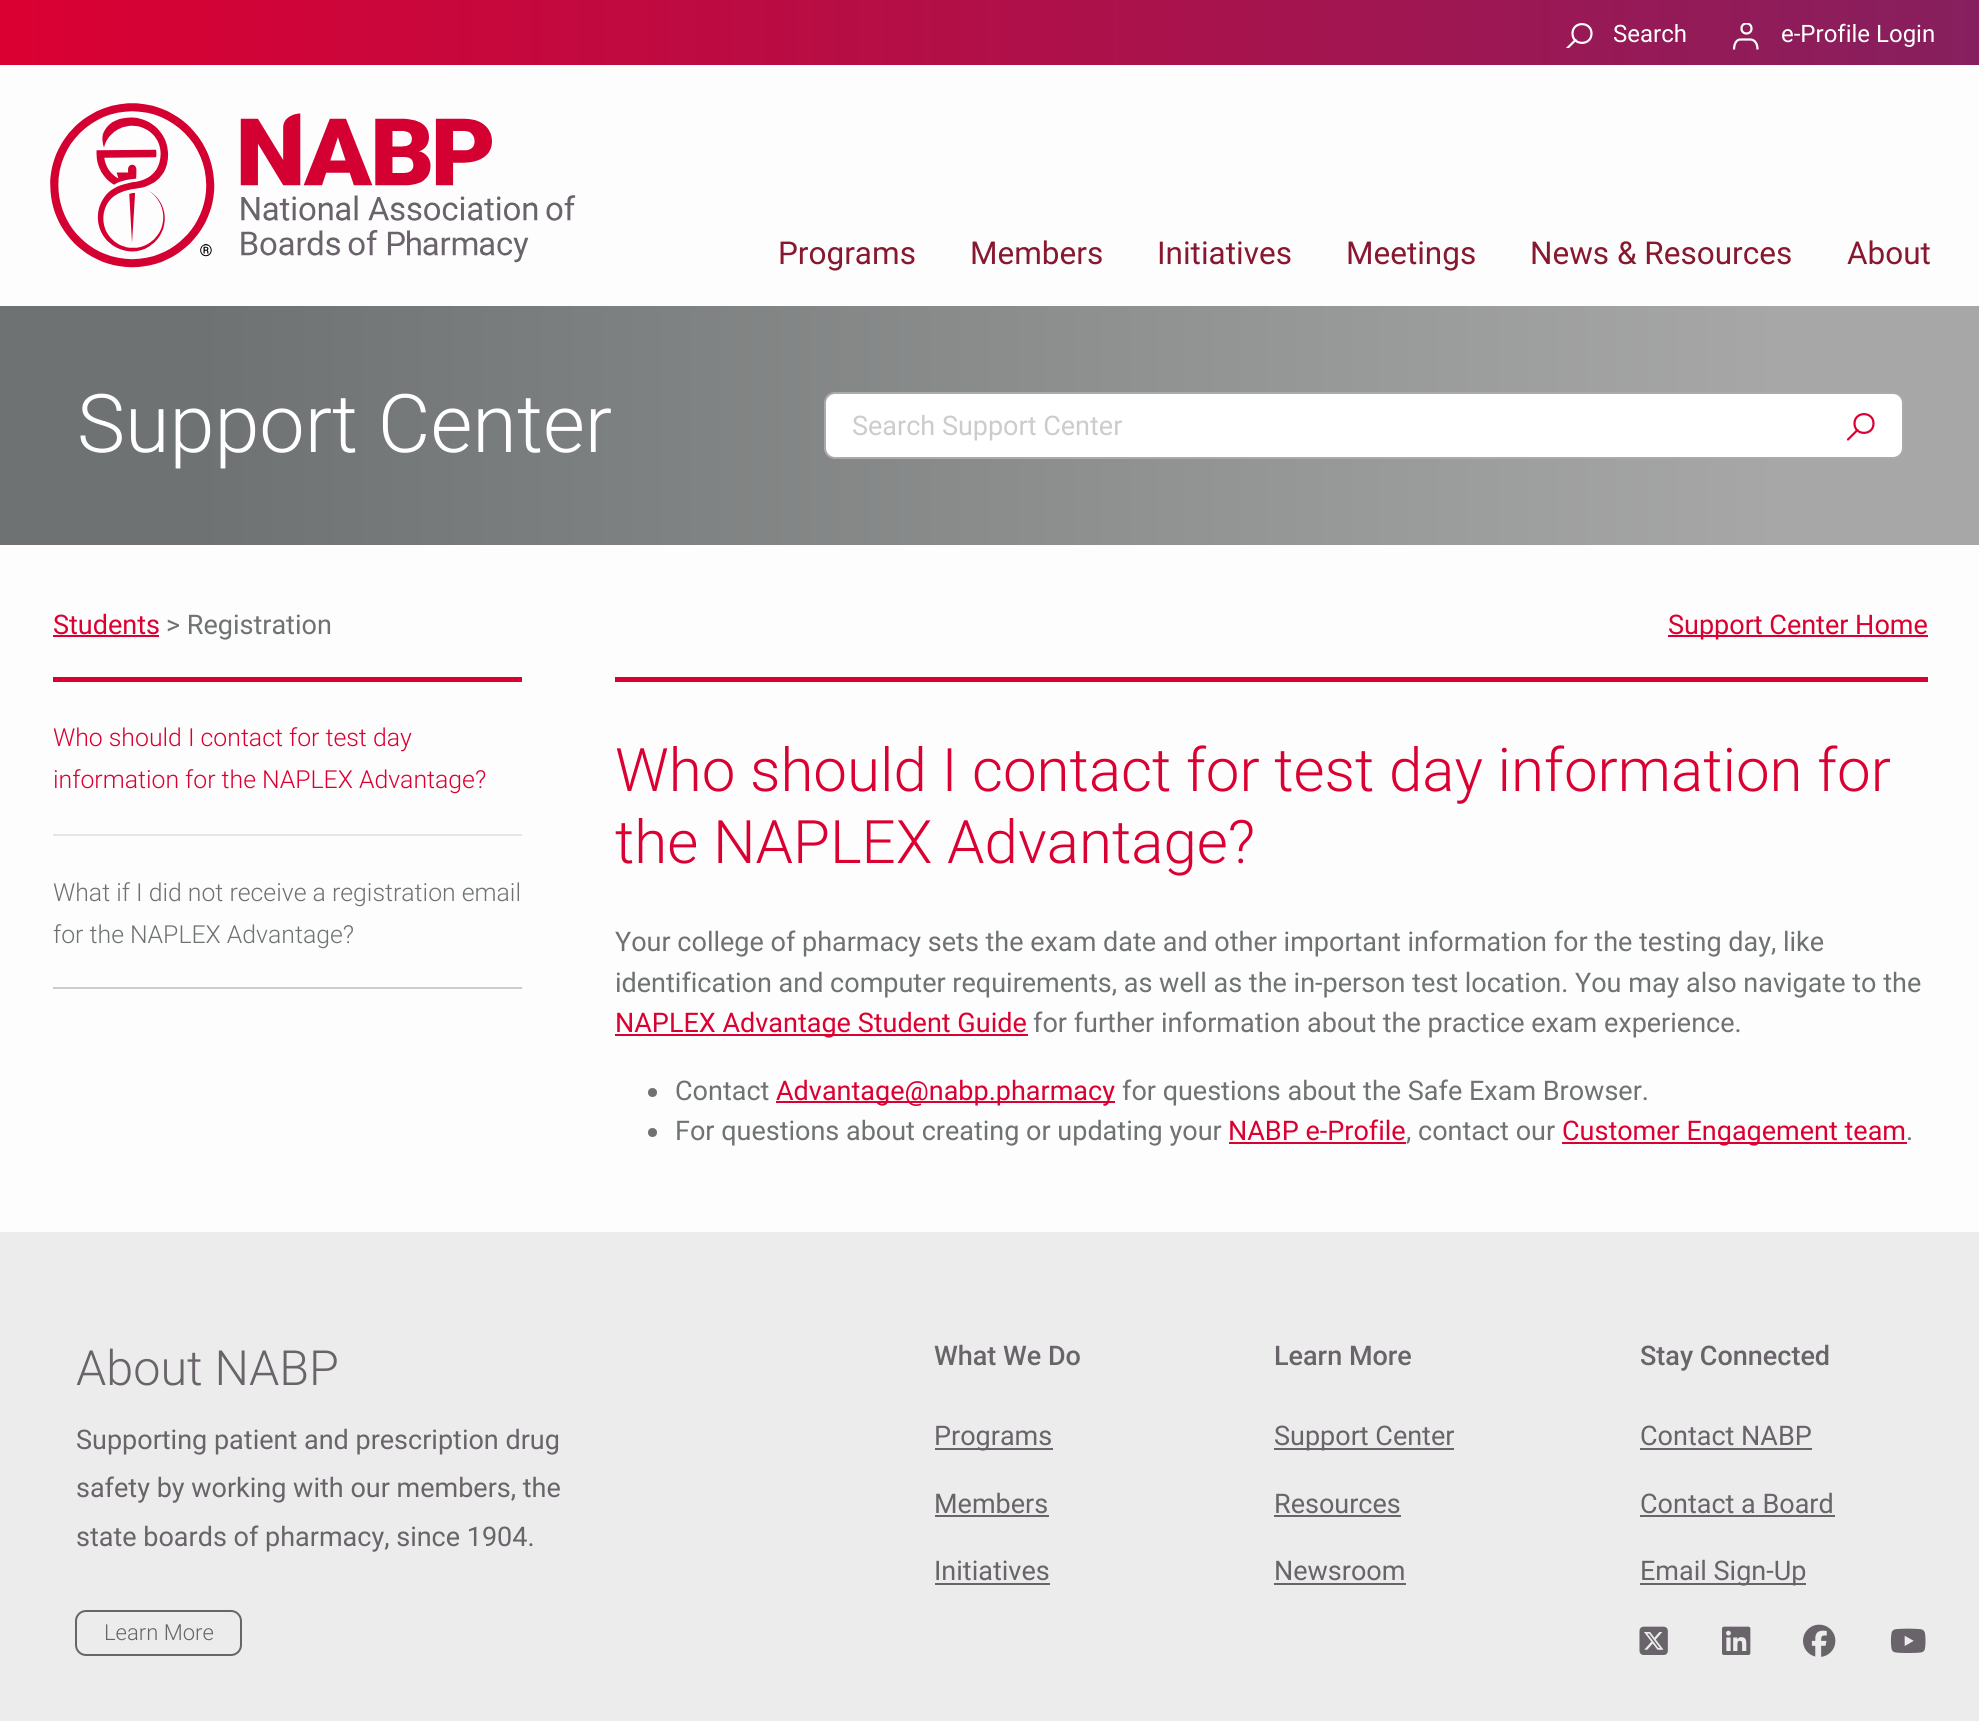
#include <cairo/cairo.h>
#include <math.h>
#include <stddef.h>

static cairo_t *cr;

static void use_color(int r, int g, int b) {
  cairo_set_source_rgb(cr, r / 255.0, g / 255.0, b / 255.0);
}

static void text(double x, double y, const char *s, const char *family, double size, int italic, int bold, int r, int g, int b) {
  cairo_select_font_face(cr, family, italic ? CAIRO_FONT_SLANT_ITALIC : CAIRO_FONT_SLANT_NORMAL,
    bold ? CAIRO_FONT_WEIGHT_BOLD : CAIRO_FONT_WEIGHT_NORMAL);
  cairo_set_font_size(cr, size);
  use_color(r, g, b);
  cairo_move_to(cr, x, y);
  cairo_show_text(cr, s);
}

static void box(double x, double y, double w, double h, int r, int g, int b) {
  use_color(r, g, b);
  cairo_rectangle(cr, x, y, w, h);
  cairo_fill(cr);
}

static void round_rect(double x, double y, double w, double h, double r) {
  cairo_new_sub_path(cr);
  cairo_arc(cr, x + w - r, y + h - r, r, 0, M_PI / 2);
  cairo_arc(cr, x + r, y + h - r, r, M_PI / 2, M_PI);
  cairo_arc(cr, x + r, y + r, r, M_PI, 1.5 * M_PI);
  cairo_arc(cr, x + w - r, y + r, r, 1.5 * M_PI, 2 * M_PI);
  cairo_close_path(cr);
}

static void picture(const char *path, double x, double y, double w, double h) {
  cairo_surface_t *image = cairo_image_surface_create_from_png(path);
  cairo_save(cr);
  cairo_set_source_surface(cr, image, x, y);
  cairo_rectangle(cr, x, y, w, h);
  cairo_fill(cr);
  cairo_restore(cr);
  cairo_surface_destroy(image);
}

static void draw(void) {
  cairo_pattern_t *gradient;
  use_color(253, 253, 253);
  cairo_paint(cr);
  gradient = cairo_pattern_create_linear(0, 32, 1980, 32);
  cairo_pattern_add_color_stop_rgba(gradient, 0, 0.859, 0, 0.196, 1);
  cairo_pattern_add_color_stop_rgba(gradient, 1, 0.529, 0.122, 0.369, 1);
  cairo_set_source(cr, gradient);
  cairo_pattern_destroy(gradient);
  cairo_rectangle(cr, 0, 0, 1979, 65);
  cairo_fill(cr);
  cairo_new_path(cr);
  cairo_move_to(cr, 1572.5, 33.5);
  cairo_curve_to(cr, 1572.5, 46, 1591.5, 46, 1591.5, 33.5);
  cairo_curve_to(cr, 1591.5, 21, 1572.5, 21, 1572.5, 33.5);
  cairo_close_path(cr);
  use_color(255, 255, 255);
  cairo_set_line_width(cr, 2.2);
  cairo_set_line_cap(cr, CAIRO_LINE_CAP_ROUND);
  cairo_set_line_join(cr, CAIRO_LINE_JOIN_ROUND);
  cairo_stroke(cr);
  cairo_save(cr);
  cairo_rectangle(cr, 1565, 23, 28, 25);
  cairo_clip(cr);
  cairo_new_path(cr);
  cairo_move_to(cr, 1575.5, 40);
  cairo_line_to(cr, 1566, 49.5);
  cairo_stroke(cr);
  cairo_restore(cr);
  cairo_save(cr);
  cairo_rectangle(cr, 1733, 23, 27, 28);
  cairo_clip(cr);
  cairo_arc(cr, 1746.5, 28.5, 5, 0, 2 * M_PI);
  cairo_set_line_cap(cr, CAIRO_LINE_CAP_BUTT);
  cairo_set_line_join(cr, CAIRO_LINE_JOIN_MITER);
  cairo_stroke(cr);
  cairo_restore(cr);
  cairo_new_path(cr);
  cairo_move_to(cr, 1734, 49.5);
  cairo_curve_to(cr, 1734, 46.5, 1735, 39.5, 1740.5, 39.5);
  cairo_line_to(cr, 1750.5, 39.5);
  cairo_curve_to(cr, 1753, 39.5, 1757.5, 41.5, 1757.5, 49.5);
  cairo_set_line_cap(cr, CAIRO_LINE_CAP_BUTT);
  cairo_set_line_join(cr, CAIRO_LINE_JOIN_MITER);
  cairo_stroke(cr);
  picture("img_01.png", 50, 103, 526, 165);
  gradient = cairo_pattern_create_linear(0, 425, 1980, 425);
  cairo_pattern_add_color_stop_rgba(gradient, 0.1, 0.431, 0.447, 0.447, 1);
  cairo_pattern_add_color_stop_rgba(gradient, 0.9, 0.655, 0.655, 0.655, 1);
  cairo_set_source(cr, gradient);
  cairo_pattern_destroy(gradient);
  cairo_rectangle(cr, 0, 306, 1979, 239);
  cairo_fill(cr);
  use_color(255, 255, 255);
  round_rect(825, 393, 1078, 65, 10);
  cairo_fill_preserve(cr);
  use_color(170, 170, 170);
  cairo_set_line_width(cr, 2);
  cairo_stroke(cr);
  cairo_new_path(cr);
  cairo_move_to(cr, 1854.5, 423.5);
  cairo_curve_to(cr, 1854.5, 436, 1873.5, 436, 1873.5, 423.5);
  cairo_curve_to(cr, 1873.5, 411, 1854.5, 411, 1854.5, 423.5);
  cairo_close_path(cr);
  cairo_move_to(cr, 1857.5, 430);
  cairo_line_to(cr, 1848, 439.5);
  use_color(219, 0, 50);
  cairo_set_line_width(cr, 2.2);
  cairo_set_line_cap(cr, CAIRO_LINE_CAP_ROUND);
  cairo_set_line_join(cr, CAIRO_LINE_JOIN_ROUND);
  cairo_stroke(cr);
  box(53, 635, 106, 2, 219, 0, 50);
  box(53, 677, 469, 5, 219, 0, 50);
  box(53, 834, 469, 2, 229, 229, 229);
  box(53, 987, 469, 2, 204, 204, 204);
  box(615, 677, 1313, 5, 219, 0, 50);
  box(1668, 635, 260, 2, 219, 0, 50);
  box(615, 1034, 413, 2, 219, 0, 50);
  use_color(110, 114, 114);
  cairo_arc(cr, 652.5, 1092.5, 4.5, 0, 2 * M_PI);
  cairo_fill(cr);
  box(776, 1101, 339, 2, 219, 0, 50);
  use_color(110, 114, 114);
  cairo_arc(cr, 652.5, 1132.5, 4.5, 0, 2 * M_PI);
  cairo_fill(cr);
  box(1229, 1142, 177, 2, 219, 0, 50);
  box(1562, 1142, 345, 2, 219, 0, 50);
  box(0, 1232, 1979, 489, 236, 236, 236);
  round_rect(76, 1611, 165, 44, 10);
  use_color(105, 99, 106);
  cairo_set_line_width(cr, 2);
  cairo_set_line_cap(cr, CAIRO_LINE_CAP_BUTT);
  cairo_set_line_join(cr, CAIRO_LINE_JOIN_MITER);
  cairo_stroke(cr);
  box(935, 1448, 118, 2, 105, 99, 106);
  box(935, 1515, 114, 2, 105, 99, 106);
  box(935, 1583, 115, 2, 105, 99, 106);
  box(1274, 1448, 180, 2, 105, 99, 106);
  box(1274, 1515, 127, 2, 105, 99, 106);
  box(1274, 1583, 132, 2, 105, 99, 106);
  box(1640, 1448, 172, 2, 105, 99, 106);
  box(1640, 1515, 195, 2, 105, 99, 106);
  box(1640, 1583, 166, 2, 105, 99, 106);
  picture("img_02.png", 1639, 1626, 29, 29);
  picture("img_03.png", 1722, 1626, 29, 29);
  picture("img_04.png", 1803, 1624, 33, 33);
  picture("img_05.png", 1890, 1628, 36, 25);
  text(1613, 42, "Search", "Roboto", 24, 0, 0, 255, 255, 255);
  text(1781, 42, "e-Profile Login", "Roboto", 24, 0, 0, 255, 255, 255);
  text(778, 264, "Programs", "Roboto", 31.5, 0, 0, 136, 24, 47);
  text(970, 264, "Members", "Roboto", 31.5, 0, 0, 136, 24, 47);
  text(1157, 264, "Initiatives", "Roboto", 31.5, 0, 0, 136, 24, 47);
  text(1346, 264, "Meetings", "Roboto", 31.5, 0, 0, 136, 24, 47);
  text(1530, 264, "News & Resources", "Roboto", 31.5, 0, 0, 136, 24, 47);
  text(1847, 264, "About", "Roboto", 31.5, 0, 0, 136, 24, 47);
  text(77, 452, "Support Center", "Roboto Light", 81, 0, 0, 255, 255, 255);
  text(852, 435, "Search Support Center", "Roboto", 27, 0, 0, 204, 204, 204);
  text(53, 634, "Students", "Roboto", 27, 0, 0, 219, 0, 50);
  text(166, 634, "> Registration", "Roboto", 27, 0, 0, 110, 114, 114);
  text(53, 746, "Who should I contact for test day", "Roboto Light", 24.8, 0, 0, 219, 0, 50);
  text(53, 788, "information for the NAPLEX Advantage?", "Roboto Light", 24.8, 0, 0, 219, 0, 50);
  text(53, 901, "What if I did not receive a registration email", "Roboto Light", 24.8, 0, 0, 110, 114, 114);
  text(53, 943, "for the NAPLEX Advantage?", "Roboto Light", 24.8, 0, 0, 110, 114, 114);
  text(1668, 634, "Support Center Home", "Roboto", 27, 0, 0, 219, 0, 50);
  text(615, 791, "Who should I contact for test day information for", "Roboto Light", 60, 0, 0, 219, 0, 50);
  text(615, 863, "the NAPLEX Advantage?", "Roboto Light", 60, 0, 0, 219, 0, 50);
  text(615, 951, "Your college of pharmacy sets the exam date and other important information for the testing day, like", "Roboto", 27, 0, 0, 110, 114, 114);
  text(615, 992, "identification and computer requirements, as well as the in-person test location. You may also navigate to the", "Roboto", 27, 0, 0, 110, 114, 114);
  text(615, 1032, "NAPLEX Advantage Student Guide", "Roboto", 27, 0, 0, 219, 0, 50);
  text(1033, 1032, "for further information about the practice exam experience.", "Roboto", 27, 0, 0, 110, 114, 114);
  text(675, 1100, "Contact", "Roboto", 27, 0, 0, 110, 114, 114);
  text(776, 1100, "Advantage@nabp.pharmacy", "Roboto", 27, 0, 0, 219, 0, 50);
  text(1122, 1100, "for questions about the Safe Exam Browser.", "Roboto", 27, 0, 0, 110, 114, 114);
  text(675, 1140, "For questions about creating or updating your", "Roboto", 27, 0, 0, 110, 114, 114);
  text(1228, 1140, "NABP e-Profile", "Roboto", 27, 0, 0, 219, 0, 50);
  text(1406, 1140, ", contact our", "Roboto", 27, 0, 0, 110, 114, 114);
  text(1562, 1140, "Customer Engagement team", "Roboto", 27, 0, 0, 219, 0, 50);
  text(1906, 1140, ".", "Roboto", 27, 0, 0, 110, 114, 114);
  text(76, 1385, "About NABP", "Roboto Light", 48.5, 0, 0, 105, 99, 106);
  text(76, 1449, "Supporting patient and prescription drug", "Roboto", 27, 0, 0, 105, 99, 106);
  text(76, 1497, "safety by working with our members, the", "Roboto", 27, 0, 0, 105, 99, 106);
  text(76, 1546, "state boards of pharmacy, since 1904.", "Roboto", 27, 0, 0, 105, 99, 106);
  text(104, 1640, "Learn More", "Roboto Light", 22, 0, 0, 105, 99, 106);
  text(934, 1365, "What We Do", "Roboto Medium", 27, 0, 0, 105, 99, 106);
  text(934, 1445, "Programs", "Roboto", 27, 0, 0, 105, 99, 106);
  text(934, 1513, "Members", "Roboto", 27, 0, 0, 105, 99, 106);
  text(934, 1580, "Initiatives", "Roboto", 27, 0, 0, 105, 99, 106);
  text(1274, 1365, "Learn More", "Roboto Medium", 27, 0, 0, 105, 99, 106);
  text(1274, 1445, "Support Center", "Roboto", 27, 0, 0, 105, 99, 106);
  text(1274, 1513, "Resources", "Roboto", 27, 0, 0, 105, 99, 106);
  text(1274, 1580, "Newsroom", "Roboto", 27, 0, 0, 105, 99, 106);
  text(1640, 1365, "Stay Connected", "Roboto Medium", 27, 0, 0, 105, 99, 106);
  text(1640, 1445, "Contact NABP", "Roboto", 27, 0, 0, 105, 99, 106);
  text(1640, 1513, "Contact a Board", "Roboto", 27, 0, 0, 105, 99, 106);
  text(1640, 1580, "Email Sign-Up", "Roboto", 27, 0, 0, 105, 99, 106);
}

int main(void) {
  cairo_surface_t *surface = cairo_image_surface_create(CAIRO_FORMAT_RGB24, 1979, 1721);
  cr = cairo_create(surface);
  cairo_font_options_t *options = cairo_font_options_create();
  cairo_font_options_set_hint_metrics(options, CAIRO_HINT_METRICS_OFF);
  cairo_font_options_set_hint_style(options, CAIRO_HINT_STYLE_NONE);
  cairo_set_font_options(cr, options);
  cairo_set_miter_limit(cr, 4);
  draw();
  cairo_surface_write_to_png(surface, "out.png");
  cairo_font_options_destroy(options);
  cairo_destroy(cr);
  cairo_surface_destroy(surface);
  return 0;
}
